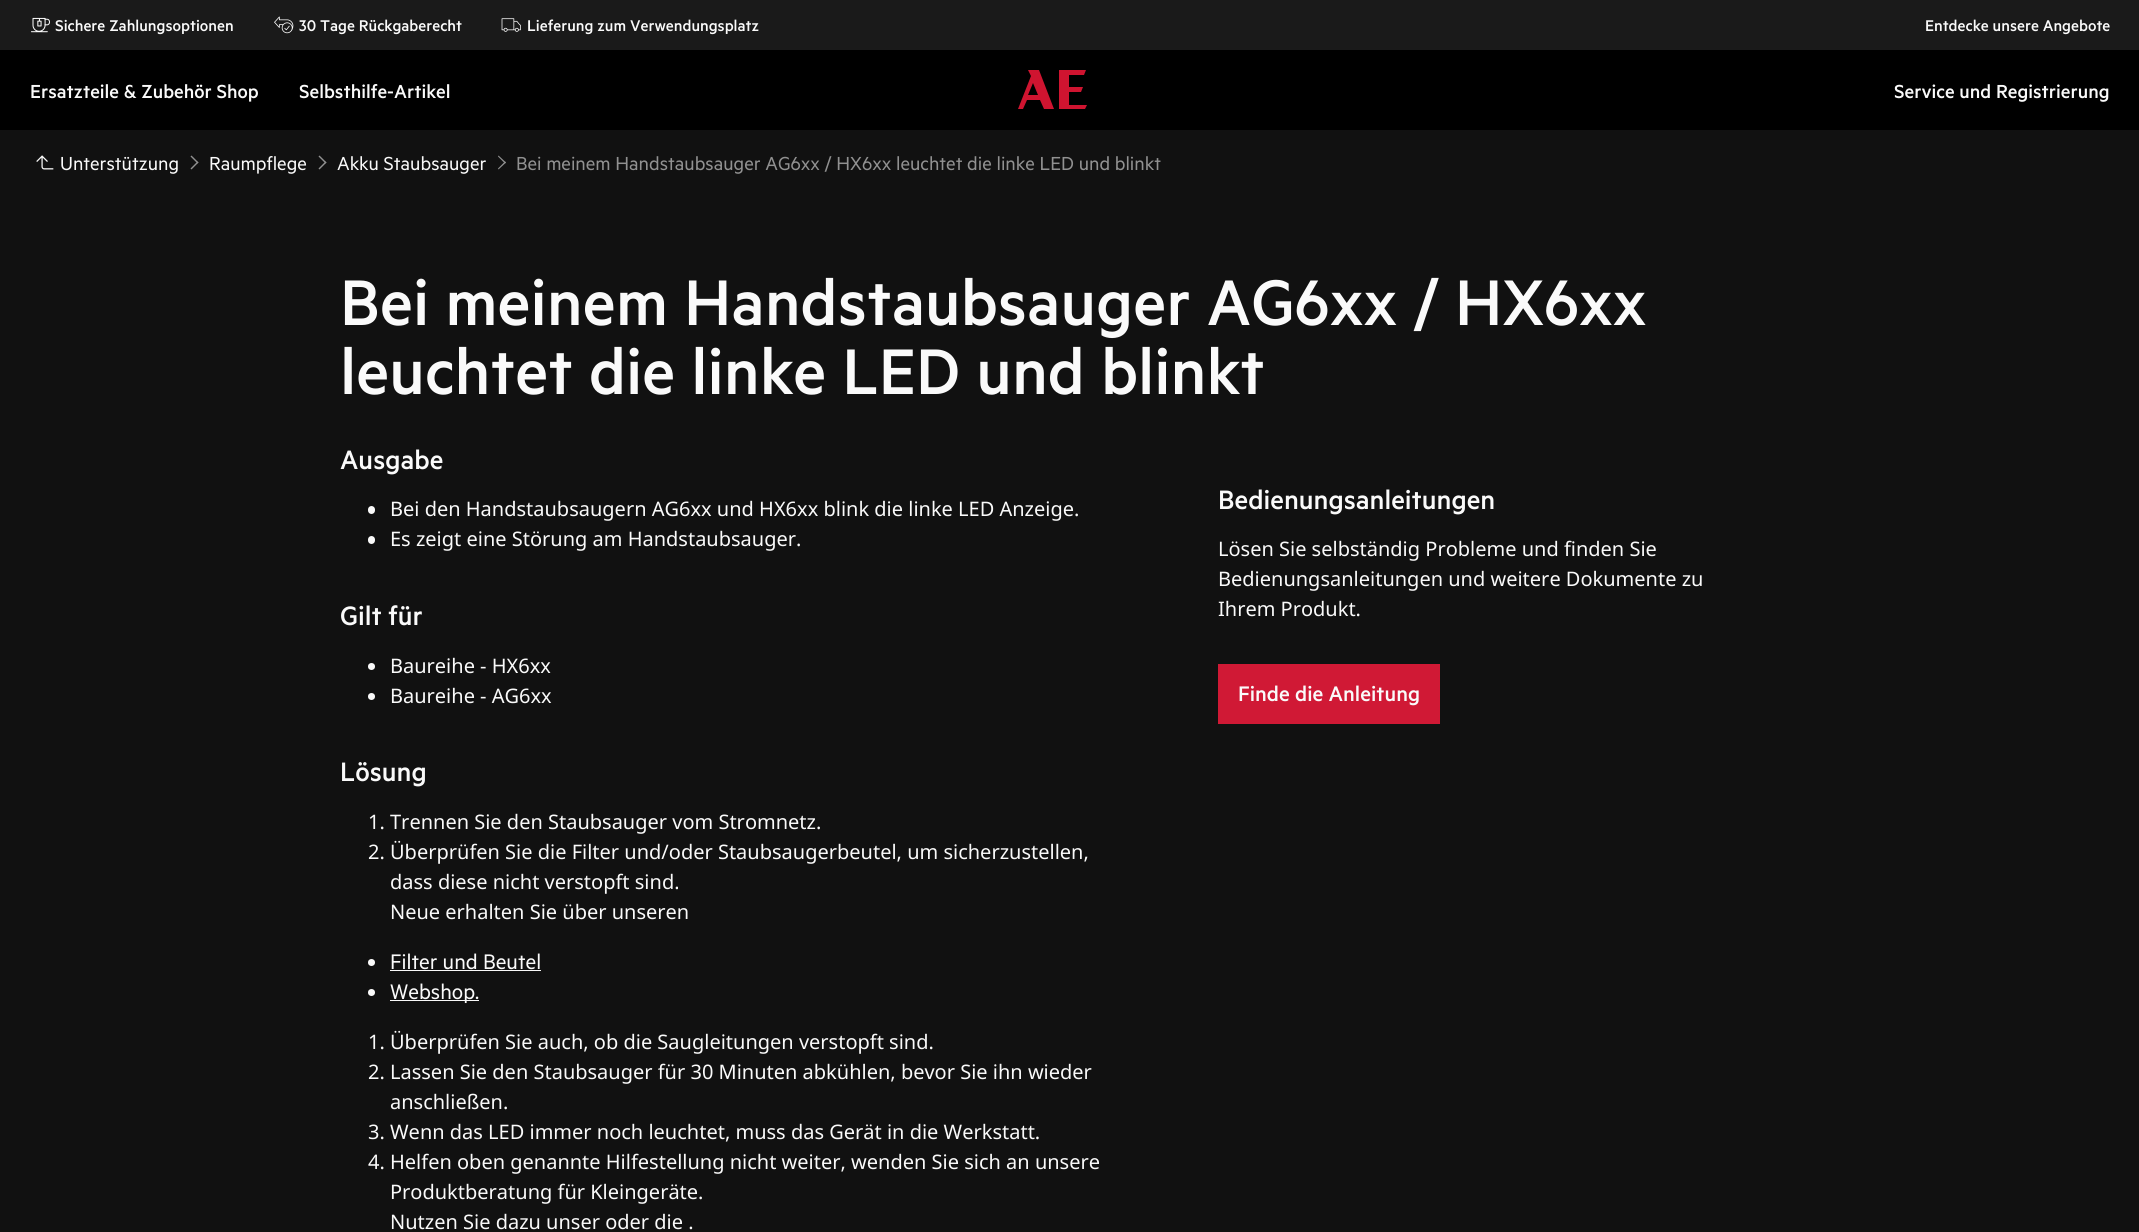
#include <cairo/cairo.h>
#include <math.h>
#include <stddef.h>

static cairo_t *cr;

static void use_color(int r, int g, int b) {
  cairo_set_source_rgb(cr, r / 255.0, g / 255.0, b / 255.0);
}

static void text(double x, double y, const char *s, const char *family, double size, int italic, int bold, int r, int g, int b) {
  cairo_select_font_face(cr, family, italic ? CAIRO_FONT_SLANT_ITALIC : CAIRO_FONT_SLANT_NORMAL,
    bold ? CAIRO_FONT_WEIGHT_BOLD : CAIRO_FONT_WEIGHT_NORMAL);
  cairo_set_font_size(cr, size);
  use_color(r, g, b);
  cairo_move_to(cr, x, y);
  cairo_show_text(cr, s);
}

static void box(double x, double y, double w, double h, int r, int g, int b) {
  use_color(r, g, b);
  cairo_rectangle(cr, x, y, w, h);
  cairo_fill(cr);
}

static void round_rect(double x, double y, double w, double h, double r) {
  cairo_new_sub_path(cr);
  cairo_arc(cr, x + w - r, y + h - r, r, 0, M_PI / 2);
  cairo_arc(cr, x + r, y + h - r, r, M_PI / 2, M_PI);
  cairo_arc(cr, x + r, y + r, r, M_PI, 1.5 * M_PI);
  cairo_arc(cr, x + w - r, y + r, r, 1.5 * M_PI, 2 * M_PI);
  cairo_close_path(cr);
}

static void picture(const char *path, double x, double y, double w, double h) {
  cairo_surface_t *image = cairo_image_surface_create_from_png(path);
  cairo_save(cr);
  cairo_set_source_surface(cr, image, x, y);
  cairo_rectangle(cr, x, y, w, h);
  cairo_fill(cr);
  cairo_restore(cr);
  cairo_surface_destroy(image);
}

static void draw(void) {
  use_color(17, 17, 17);
  cairo_paint(cr);
  box(0, 0, 2139, 50, 26, 26, 26);
  picture("img_01.png", 31, 17, 19, 16);
  picture("img_02.png", 274, 16, 20, 18);
  picture("img_03.png", 501, 18, 20, 14);
  box(0, 50, 2139, 80, 0, 0, 0);
  use_color(207, 20, 48);
  cairo_new_path(cr);
  cairo_move_to(cr, 1028, 70);
  cairo_line_to(cr, 1031, 76);
  cairo_line_to(cr, 1018, 109);
  cairo_line_to(cr, 1023, 109);
  cairo_line_to(cr, 1027, 100);
  cairo_line_to(cr, 1040, 100);
  cairo_line_to(cr, 1044, 109);
  cairo_line_to(cr, 1054, 109);
  cairo_line_to(cr, 1039, 70);
  cairo_close_path(cr);
  cairo_move_to(cr, 1028, 95);
  cairo_line_to(cr, 1033, 83);
  cairo_line_to(cr, 1038, 95);
  cairo_close_path(cr);
  cairo_move_to(cr, 1069, 92);
  cairo_line_to(cr, 1081, 92);
  cairo_line_to(cr, 1083, 87);
  cairo_line_to(cr, 1069, 87);
  cairo_line_to(cr, 1069, 75);
  cairo_line_to(cr, 1084, 75);
  cairo_line_to(cr, 1086, 70);
  cairo_line_to(cr, 1059, 70);
  cairo_line_to(cr, 1059, 109);
  cairo_line_to(cr, 1085, 109);
  cairo_line_to(cr, 1087, 105);
  cairo_line_to(cr, 1069, 105);
  cairo_close_path(cr);
  cairo_fill(cr);
  picture("img_04.png", 36, 155, 18, 15);
  use_color(145, 145, 145);
  cairo_new_path(cr);
  cairo_move_to(cr, 191.5, 155.5);
  cairo_line_to(cr, 198.5, 162.5);
  cairo_line_to(cr, 197.5, 163.5);
  cairo_line_to(cr, 190.5, 156.5);
  cairo_close_path(cr);
  cairo_fill(cr);
  cairo_new_path(cr);
  cairo_move_to(cr, 197.5, 161.5);
  cairo_line_to(cr, 198.5, 162.5);
  cairo_line_to(cr, 191.5, 169.5);
  cairo_line_to(cr, 190.5, 168.5);
  cairo_close_path(cr);
  cairo_fill(cr);
  cairo_new_path(cr);
  cairo_move_to(cr, 319.5, 155.5);
  cairo_line_to(cr, 326.5, 162.5);
  cairo_line_to(cr, 325.5, 163.5);
  cairo_line_to(cr, 318.5, 156.5);
  cairo_close_path(cr);
  cairo_fill(cr);
  cairo_new_path(cr);
  cairo_move_to(cr, 325.5, 161.5);
  cairo_line_to(cr, 326.5, 162.5);
  cairo_line_to(cr, 319.5, 169.5);
  cairo_line_to(cr, 318.5, 168.5);
  cairo_close_path(cr);
  cairo_fill(cr);
  cairo_new_path(cr);
  cairo_move_to(cr, 498.5, 155.5);
  cairo_line_to(cr, 506, 162.5);
  cairo_line_to(cr, 505, 163.5);
  cairo_line_to(cr, 498, 156.5);
  cairo_close_path(cr);
  cairo_fill(cr);
  cairo_new_path(cr);
  cairo_move_to(cr, 505, 161.5);
  cairo_line_to(cr, 506, 162.5);
  cairo_line_to(cr, 498.5, 169.5);
  cairo_line_to(cr, 498, 168.5);
  cairo_close_path(cr);
  cairo_fill(cr);
  use_color(250, 250, 250);
  round_rect(368, 506, 7, 8, 3.5);
  cairo_fill(cr);
  round_rect(368, 536, 7, 8, 3.5);
  cairo_fill(cr);
  cairo_arc(cr, 371.5, 666.5, 3.5, 0, 2 * M_PI);
  cairo_fill(cr);
  cairo_arc(cr, 371.5, 696.5, 3.5, 0, 2 * M_PI);
  cairo_fill(cr);
  cairo_arc(cr, 371.5, 962.5, 3.5, 0, 2 * M_PI);
  cairo_fill(cr);
  box(390, 970, 151, 1, 250, 250, 250);
  cairo_arc(cr, 371.5, 992.5, 3.5, 0, 2 * M_PI);
  cairo_fill(cr);
  box(390, 1000, 89, 1, 250, 250, 250);
  box(1218, 664, 222, 60, 208, 25, 53);
  text(55, 31, "Sichere Zahlungsoptionen", "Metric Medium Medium", 17.5, 0, 0, 250, 250, 250);
  text(299, 31, "30 Tage Rückgaberecht", "Metric Medium Medium", 17.5, 0, 0, 250, 250, 250);
  text(527, 31, "Lieferung zum Verwendungsplatz", "Metric Medium Medium", 17.5, 0, 0, 250, 250, 250);
  text(1925, 31, "Entdecke unsere Angebote", "Metric Medium Medium", 17.5, 0, 0, 250, 250, 250);
  text(30, 98, "Ersatzteile & Zubehör Shop", "Metric Medium Medium", 21.25, 0, 0, 250, 250, 250);
  text(299, 98, "Selbsthilfe-Artikel", "Metric Medium Medium", 21.25, 0, 0, 250, 250, 250);
  text(1894, 98, "Service und Registrierung", "Metric Medium Medium", 21.25, 0, 0, 250, 250, 250);
  text(60, 170, "Unterstützung", "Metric", 21.25, 0, 0, 250, 250, 250);
  text(209, 170, "Raumpflege", "Metric", 21.25, 0, 0, 250, 250, 250);
  text(337, 170, "Akku Staubsauger", "Metric", 21.25, 0, 0, 250, 250, 250);
  text(516, 170, "Bei meinem Handstaubsauger AG6xx / HX6xx leuchtet die linke LED und blinkt", "Metric", 21.25, 0, 0, 145, 145, 145);
  text(340, 325, "Bei meinem Handstaubsauger AG6xx / HX6xx", "Metric Medium Medium", 72.5, 0, 0, 250, 250, 250);
  text(340, 394, "leuchtet die linke LED und blinkt", "Metric Medium Medium", 72.5, 0, 0, 250, 250, 250);
  text(340, 469, "Ausgabe", "Metric Medium Medium", 30, 0, 0, 250, 250, 250);
  text(390, 516, "Bei den Handstaubsaugern AG6xx und HX6xx blink die linke LED Anzeige.", "Noto Sans", 20, 0, 0, 250, 250, 250);
  text(390, 546, "Es zeigt eine Störung am Handstaubsauger.", "Noto Sans", 20, 0, 0, 250, 250, 250);
  text(340, 625, "Gilt für", "Metric Medium Medium", 30, 0, 0, 250, 250, 250);
  text(390, 673, "Baureihe - HX6xx", "Noto Sans", 20, 0, 0, 250, 250, 250);
  text(390, 703, "Baureihe - AG6xx", "Noto Sans", 20, 0, 0, 250, 250, 250);
  text(340, 781, "Lösung", "Metric Medium Medium", 30, 0, 0, 250, 250, 250);
  text(368, 829, "1. Trennen Sie den Staubsauger vom Stromnetz.", "Noto Sans", 20, 0, 0, 250, 250, 250);
  text(368, 859, "2. Überprüfen Sie die Filter und/oder Staubsaugerbeutel, um sicherzustellen,", "Noto Sans", 20, 0, 0, 250, 250, 250);
  text(390, 889, "dass diese nicht verstopft sind.", "Noto Sans", 20, 0, 0, 250, 250, 250);
  text(390, 919, "Neue erhalten Sie über unseren", "Noto Sans", 20, 0, 0, 250, 250, 250);
  text(390, 969, "Filter und Beutel", "Metric", 23.75, 0, 0, 250, 250, 250);
  text(390, 999, "Webshop.", "Metric", 23.75, 0, 0, 250, 250, 250);
  text(368, 1049, "1. Überprüfen Sie auch, ob die Saugleitungen verstopft sind.", "Noto Sans", 20, 0, 0, 250, 250, 250);
  text(368, 1079, "2. Lassen Sie den Staubsauger für 30 Minuten abkühlen, bevor Sie ihn wieder", "Noto Sans", 20, 0, 0, 250, 250, 250);
  text(390, 1109, "anschließen.", "Noto Sans", 20, 0, 0, 250, 250, 250);
  text(368, 1139, "3. Wenn das LED immer noch leuchtet, muss das Gerät in die Werkstatt.", "Noto Sans", 20, 0, 0, 250, 250, 250);
  text(368, 1169, "4. Helfen oben genannte Hilfestellung nicht weiter, wenden Sie sich an unsere", "Noto Sans", 20, 0, 0, 250, 250, 250);
  text(390, 1199, "Produktberatung für Kleingeräte.", "Noto Sans", 20, 0, 0, 250, 250, 250);
  text(390, 1229, "Nutzen Sie dazu unser oder die .", "Noto Sans", 20, 0, 0, 250, 250, 250);
  text(1218, 509, "Bedienungsanleitungen", "Metric Medium Medium", 30, 0, 0, 250, 250, 250);
  text(1218, 556, "Lösen Sie selbständig Probleme und finden Sie", "Noto Sans", 20, 0, 0, 250, 250, 250);
  text(1218, 586, "Bedienungsanleitungen und weitere Dokumente zu", "Noto Sans", 20, 0, 0, 250, 250, 250);
  text(1218, 616, "Ihrem Produkt.", "Noto Sans", 20, 0, 0, 250, 250, 250);
  text(1238, 701, "Finde die Anleitung", "Metric Medium Medium", 23.75, 0, 0, 250, 250, 250);
}

int main(void) {
  cairo_surface_t *surface = cairo_image_surface_create(CAIRO_FORMAT_RGB24, 2139, 1232);
  cr = cairo_create(surface);
  cairo_font_options_t *options = cairo_font_options_create();
  cairo_font_options_set_hint_metrics(options, CAIRO_HINT_METRICS_OFF);
  cairo_font_options_set_hint_style(options, CAIRO_HINT_STYLE_NONE);
  cairo_set_font_options(cr, options);
  cairo_set_miter_limit(cr, 4);
  draw();
  cairo_surface_write_to_png(surface, "out.png");
  cairo_font_options_destroy(options);
  cairo_destroy(cr);
  cairo_surface_destroy(surface);
  return 0;
}
